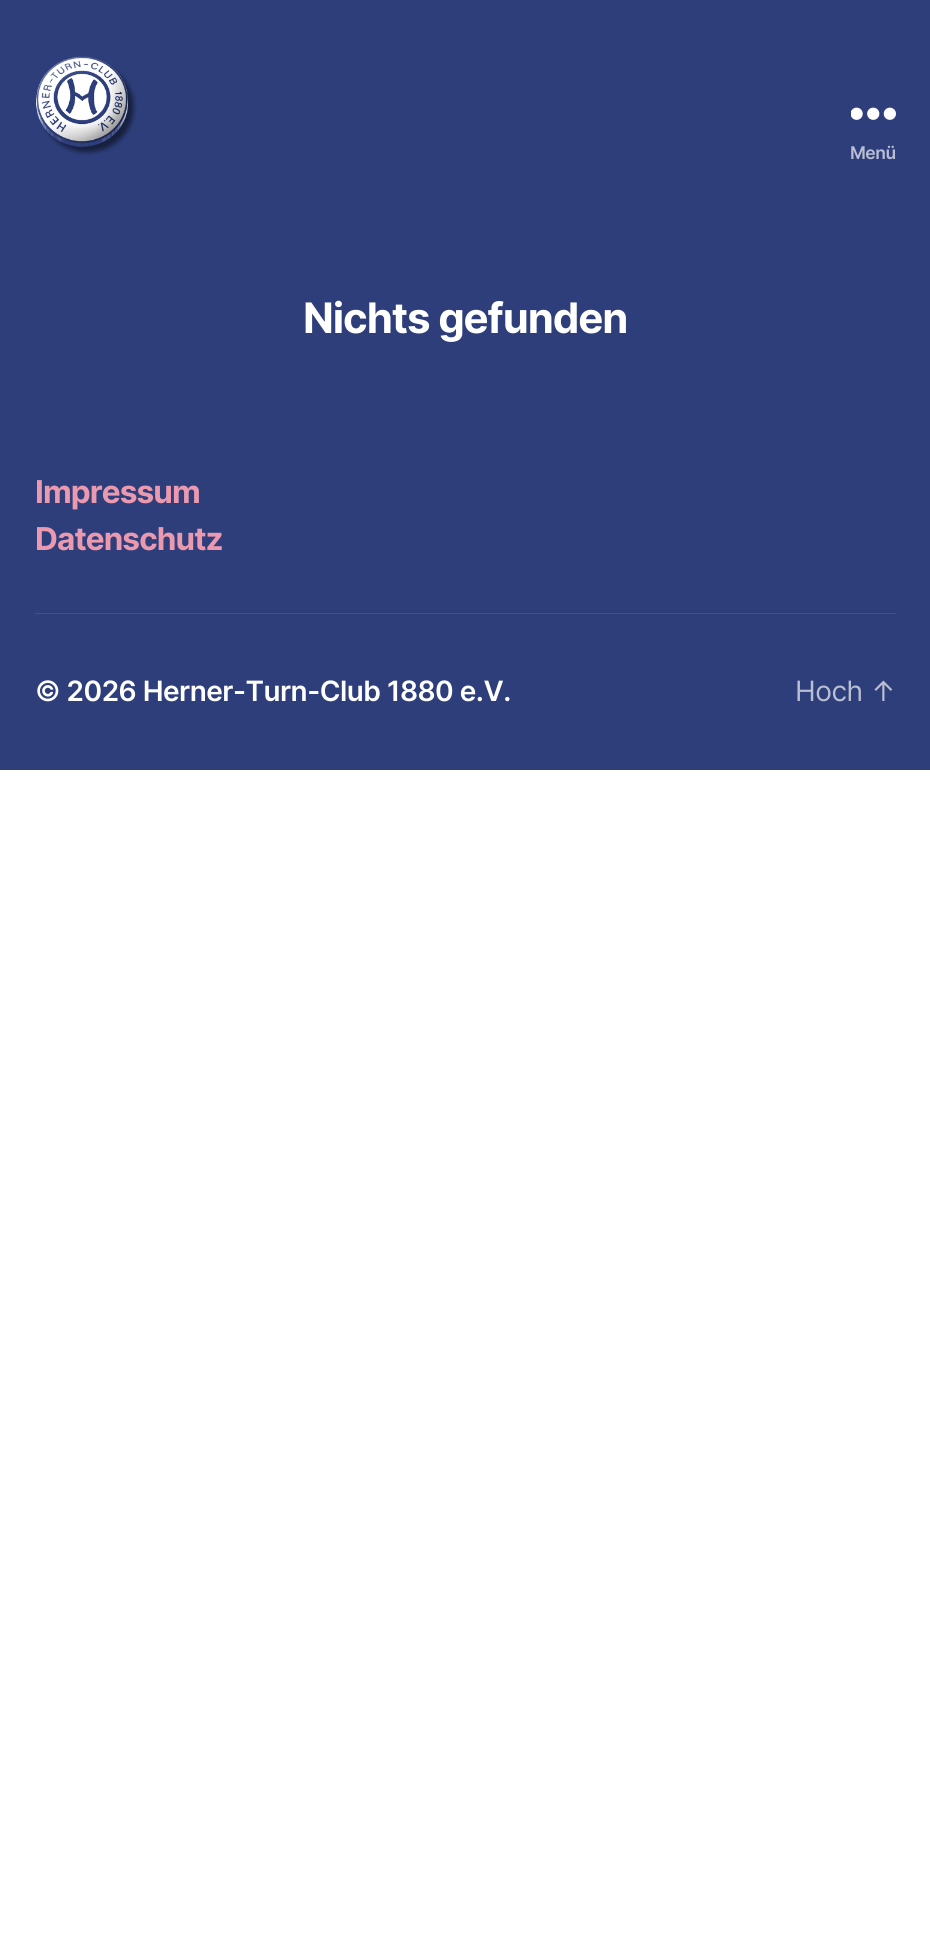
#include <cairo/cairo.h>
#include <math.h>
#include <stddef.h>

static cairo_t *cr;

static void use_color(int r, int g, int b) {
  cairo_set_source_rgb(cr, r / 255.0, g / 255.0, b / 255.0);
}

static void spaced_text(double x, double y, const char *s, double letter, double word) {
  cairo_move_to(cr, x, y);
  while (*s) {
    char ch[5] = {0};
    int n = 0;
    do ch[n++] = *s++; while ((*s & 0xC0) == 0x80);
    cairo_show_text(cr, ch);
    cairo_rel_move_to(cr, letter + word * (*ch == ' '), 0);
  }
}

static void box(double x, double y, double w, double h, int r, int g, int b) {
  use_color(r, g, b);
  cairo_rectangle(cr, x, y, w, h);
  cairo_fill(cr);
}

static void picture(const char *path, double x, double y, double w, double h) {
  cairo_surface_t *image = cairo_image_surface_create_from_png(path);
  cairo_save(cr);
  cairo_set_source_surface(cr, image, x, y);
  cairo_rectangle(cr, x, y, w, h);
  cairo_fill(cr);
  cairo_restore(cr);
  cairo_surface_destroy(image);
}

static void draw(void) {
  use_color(255, 255, 255);
  cairo_paint(cr);
  box(0, 0, 930, 770, 45, 62, 123);
  picture("img_01.png", 36, 56, 101, 100);
  picture("img_02.png", 851, 107, 45, 13);
  box(35, 613, 861, 1, 58, 80, 161);
  cairo_select_font_face(cr, "Inter SemiBold", CAIRO_FONT_SLANT_NORMAL, CAIRO_FONT_WEIGHT_NORMAL);
  cairo_set_font_size(cr, 17.5);
  use_color(185, 190, 211);
  spaced_text(850, 159, "Menü", -0.5, 0);
  cairo_select_font_face(cr, "Inter", CAIRO_FONT_SLANT_NORMAL, CAIRO_FONT_WEIGHT_BOLD);
  cairo_set_font_size(cr, 42);
  use_color(255, 255, 255);
  spaced_text(303, 333, "Nichts gefunden", -1.1, 0);
  cairo_set_font_size(cr, 31.5);
  use_color(234, 153, 174);
  spaced_text(35, 503, "Impressum", -0.9, 0);
  spaced_text(35, 550, "Datenschutz", -0.9, 0);
  cairo_select_font_face(cr, "Inter SemiBold", CAIRO_FONT_SLANT_NORMAL, CAIRO_FONT_WEIGHT_NORMAL);
  cairo_set_font_size(cr, 28);
  use_color(255, 255, 255);
  spaced_text(35, 701, "© 2026 Herner-Turn-Club 1880 e.V.", -0.5, 0);
  cairo_select_font_face(cr, "Inter", CAIRO_FONT_SLANT_NORMAL, CAIRO_FONT_WEIGHT_NORMAL);
  use_color(185, 190, 211);
  spaced_text(795, 701, "Hoch ↑", -0.5, 0);
}

int main(void) {
  cairo_surface_t *surface = cairo_image_surface_create(CAIRO_FORMAT_RGB24, 930, 1947);
  cr = cairo_create(surface);
  cairo_font_options_t *options = cairo_font_options_create();
  cairo_font_options_set_hint_metrics(options, CAIRO_HINT_METRICS_OFF);
  cairo_font_options_set_hint_style(options, CAIRO_HINT_STYLE_NONE);
  cairo_set_font_options(cr, options);
  cairo_set_miter_limit(cr, 4);
  draw();
  cairo_surface_write_to_png(surface, "out.png");
  cairo_font_options_destroy(options);
  cairo_destroy(cr);
  cairo_surface_destroy(surface);
  return 0;
}
